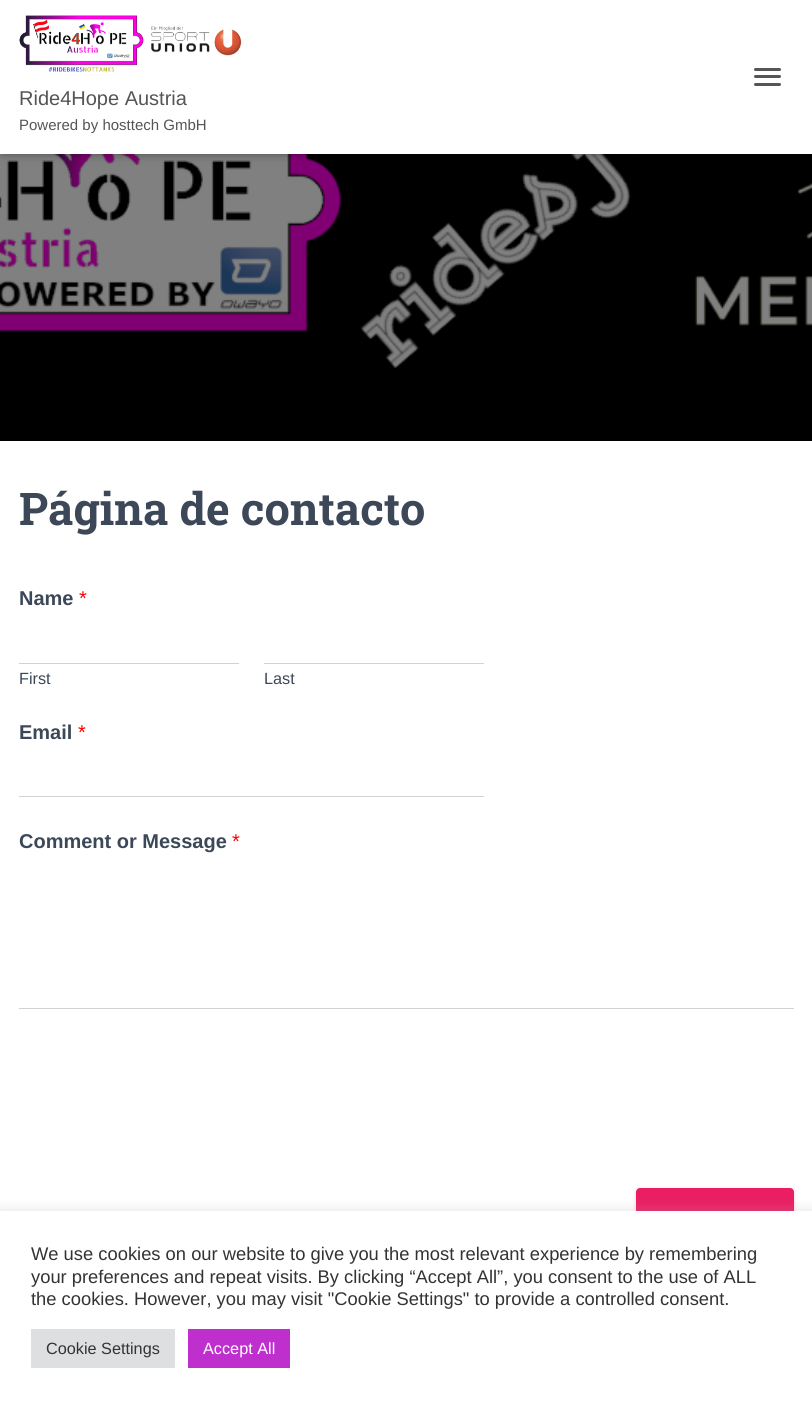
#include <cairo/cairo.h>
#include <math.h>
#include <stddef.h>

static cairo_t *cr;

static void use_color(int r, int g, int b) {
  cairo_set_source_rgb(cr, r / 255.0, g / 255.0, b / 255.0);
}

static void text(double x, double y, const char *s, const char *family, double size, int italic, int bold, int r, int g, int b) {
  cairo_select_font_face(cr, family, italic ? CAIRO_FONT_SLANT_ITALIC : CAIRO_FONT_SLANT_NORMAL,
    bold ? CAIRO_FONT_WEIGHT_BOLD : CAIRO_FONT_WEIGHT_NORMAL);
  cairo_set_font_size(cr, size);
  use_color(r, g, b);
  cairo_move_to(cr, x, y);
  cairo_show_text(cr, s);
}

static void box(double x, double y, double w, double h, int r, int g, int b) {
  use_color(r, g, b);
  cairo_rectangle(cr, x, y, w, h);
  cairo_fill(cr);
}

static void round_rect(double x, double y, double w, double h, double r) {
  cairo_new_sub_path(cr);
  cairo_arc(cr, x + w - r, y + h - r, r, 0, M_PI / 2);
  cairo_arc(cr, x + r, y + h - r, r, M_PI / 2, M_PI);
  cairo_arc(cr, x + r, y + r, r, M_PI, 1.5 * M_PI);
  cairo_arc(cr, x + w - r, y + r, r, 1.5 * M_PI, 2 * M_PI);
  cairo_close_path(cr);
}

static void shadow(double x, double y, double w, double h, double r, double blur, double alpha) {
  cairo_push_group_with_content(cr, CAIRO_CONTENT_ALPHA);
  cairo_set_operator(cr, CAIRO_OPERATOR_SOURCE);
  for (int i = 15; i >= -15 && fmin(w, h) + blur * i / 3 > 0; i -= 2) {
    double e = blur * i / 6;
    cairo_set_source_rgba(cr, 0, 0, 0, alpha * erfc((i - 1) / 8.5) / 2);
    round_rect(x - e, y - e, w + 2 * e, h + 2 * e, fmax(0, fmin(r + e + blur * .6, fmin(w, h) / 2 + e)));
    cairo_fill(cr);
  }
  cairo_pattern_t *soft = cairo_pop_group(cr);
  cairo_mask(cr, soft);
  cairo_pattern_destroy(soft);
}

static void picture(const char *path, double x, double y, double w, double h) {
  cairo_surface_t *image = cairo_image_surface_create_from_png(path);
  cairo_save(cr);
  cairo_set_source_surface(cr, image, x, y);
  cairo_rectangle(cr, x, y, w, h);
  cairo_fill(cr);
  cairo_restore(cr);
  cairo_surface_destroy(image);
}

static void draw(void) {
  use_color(255, 255, 255);
  cairo_paint(cr);
  picture("img_02.png", 0, 154, 812, 287);
  use_color(0, 0, 0);
  shadow(3, 8, 807, 148, 0, 3, 0.1);
  shadow(0, 1, 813, 154, 0, 6, 0.12);
  shadow(8, 9, 797, 139, 0, 6, 0.42);
  box(0, 0, 812, 154, 255, 255, 255);
  use_color(85, 85, 85);
  round_rect(754, 68, 27, 3, 1.5);
  cairo_fill(cr);
  round_rect(754, 75, 27, 3, 1.5);
  cairo_fill(cr);
  round_rect(754, 83, 27, 3, 1.5);
  cairo_fill(cr);
  picture("img_01.png", 19, 15, 223, 57);
  box(19, 663, 220, 1, 210, 210, 210);
  box(264, 663, 220, 1, 210, 210, 210);
  box(19, 796, 465, 1, 210, 210, 210);
  box(19, 1008, 775, 1, 210, 210, 210);
  use_color(233, 30, 99);
  shadow(636, 1189, 158, 70, 4, 3, 0.12);
  shadow(636, 1190, 158, 70, 4, 1, 0.14);
  use_color(233, 30, 99);
  round_rect(636, 1188, 158, 70, 4);
  cairo_fill(cr);
  use_color(172, 171, 171);
  shadow(0, 1210, 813, 194, 0, 6, 0.3);
  box(0, 1211, 812, 194, 255, 255, 255);
  box(31, 1329, 144, 39, 222, 223, 224);
  box(188, 1329, 102, 39, 190, 47, 206);
  text(19, 105, "Ride4Hope Austria", "Liberation Sans", 20, 0, 0, 85, 85, 85);
  text(19, 130, "Powered by hosttech GmbH", "Liberation Sans", 15, 0, 0, 85, 85, 85);
  text(19, 525, "Página de contacto", "Roboto Slab", 45, 0, 1, 60, 72, 88);
  text(19, 605, "Name", "Liberation Sans", 20, 0, 1, 60, 72, 88);
  text(79, 605, "*", "Liberation Sans", 20, 0, 0, 255, 0, 0);
  text(19, 684, "First", "Liberation Sans", 16.25, 0, 0, 60, 72, 88);
  text(264, 684, "Last", "Liberation Sans", 16.25, 0, 0, 60, 72, 88);
  text(19, 739, "Email", "Liberation Sans", 20, 0, 1, 60, 72, 88);
  text(78, 739, "*", "Liberation Sans", 20, 0, 0, 255, 0, 0);
  text(19, 848, "Comment or Message", "Liberation Sans", 20, 0, 1, 60, 72, 88);
  text(232, 848, "*", "Liberation Sans", 20, 0, 0, 255, 0, 0);
  text(31, 1260, "We use cookies on our website to give you the most relevant experience by remembering", "Liberation Sans", 18.35, 0, 0, 51, 51, 51);
  text(31, 1283, "your preferences and repeat visits. By clicking “Accept All”, you consent to the use of ALL", "Liberation Sans", 18.35, 0, 0, 51, 51, 51);
  text(31, 1305, "the cookies. However, you may visit \"Cookie Settings\" to provide a controlled consent.", "Liberation Sans", 18.35, 0, 0, 51, 51, 51);
  text(46, 1354, "Cookie Settings", "Liberation Sans", 16.25, 0, 0, 51, 51, 51);
  text(203, 1354, "Accept All", "Liberation Sans", 16.25, 0, 0, 255, 255, 255);
}

int main(void) {
  cairo_surface_t *surface = cairo_image_surface_create(CAIRO_FORMAT_RGB24, 812, 1405);
  cr = cairo_create(surface);
  cairo_font_options_t *options = cairo_font_options_create();
  cairo_font_options_set_hint_metrics(options, CAIRO_HINT_METRICS_OFF);
  cairo_font_options_set_hint_style(options, CAIRO_HINT_STYLE_NONE);
  cairo_set_font_options(cr, options);
  cairo_set_miter_limit(cr, 4);
  draw();
  cairo_surface_write_to_png(surface, "out.png");
  cairo_font_options_destroy(options);
  cairo_destroy(cr);
  cairo_surface_destroy(surface);
  return 0;
}
